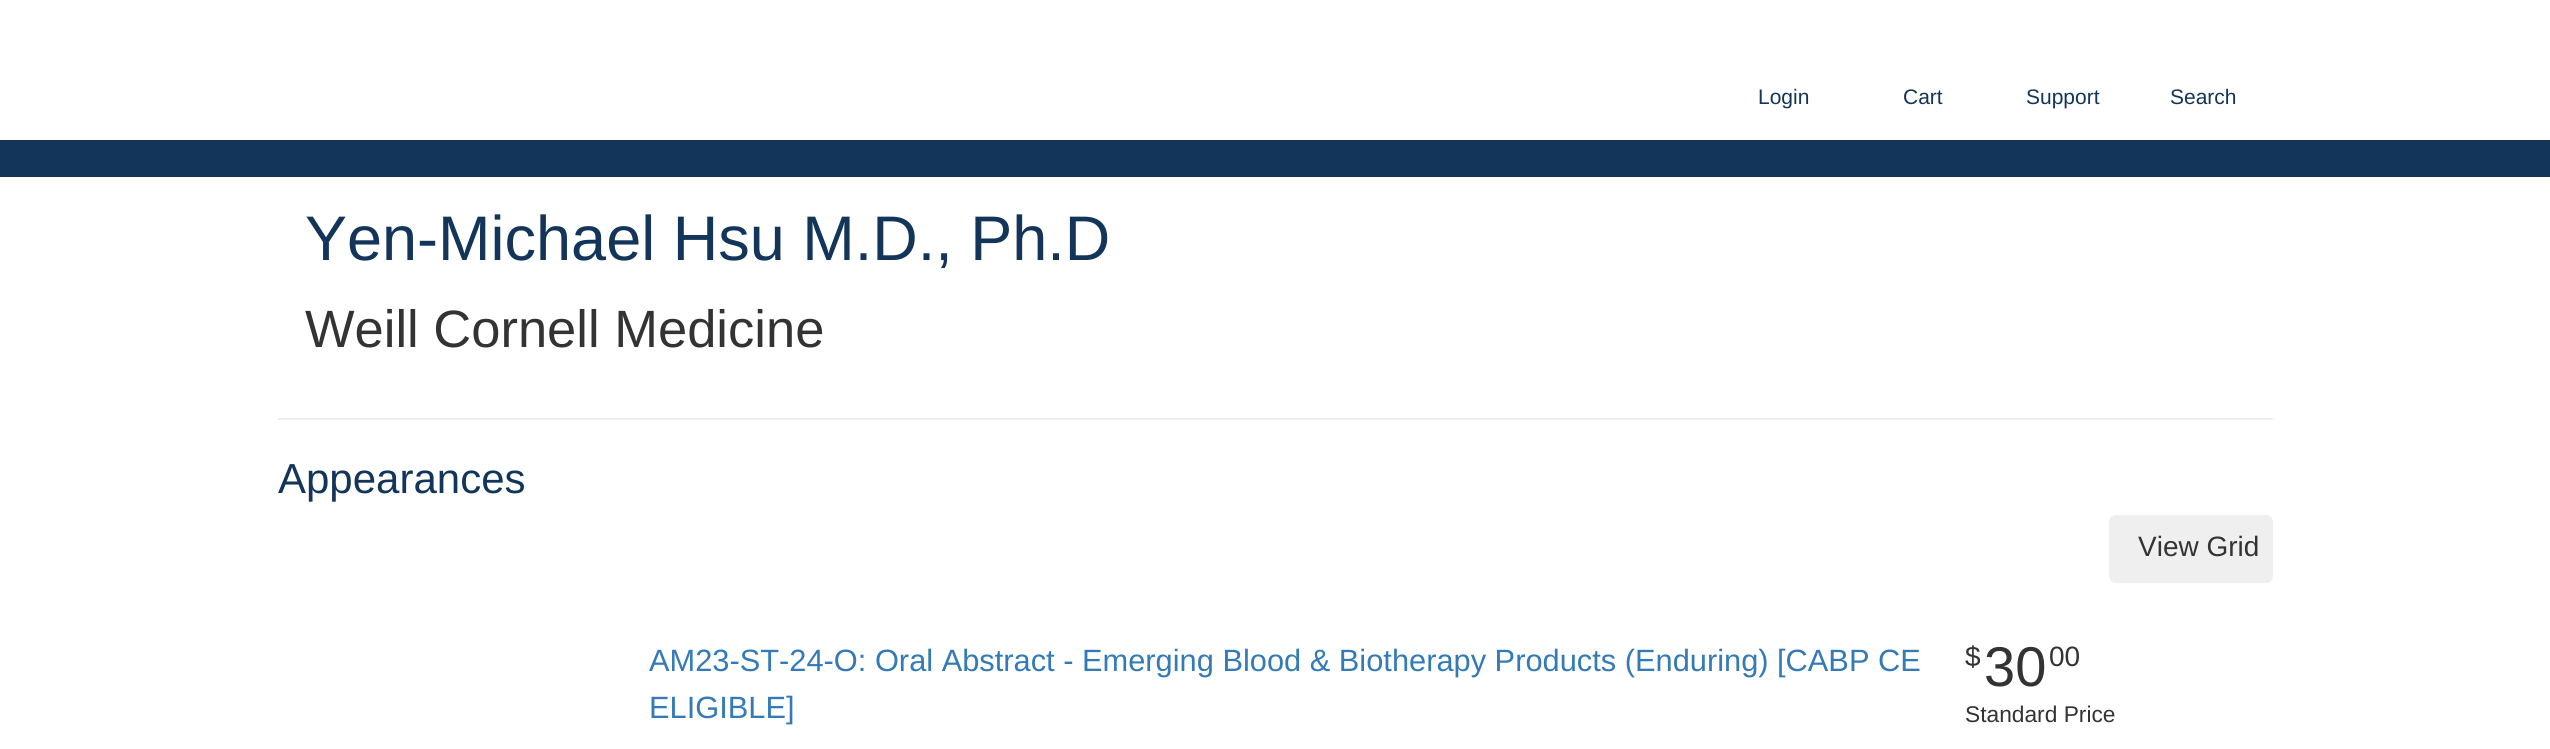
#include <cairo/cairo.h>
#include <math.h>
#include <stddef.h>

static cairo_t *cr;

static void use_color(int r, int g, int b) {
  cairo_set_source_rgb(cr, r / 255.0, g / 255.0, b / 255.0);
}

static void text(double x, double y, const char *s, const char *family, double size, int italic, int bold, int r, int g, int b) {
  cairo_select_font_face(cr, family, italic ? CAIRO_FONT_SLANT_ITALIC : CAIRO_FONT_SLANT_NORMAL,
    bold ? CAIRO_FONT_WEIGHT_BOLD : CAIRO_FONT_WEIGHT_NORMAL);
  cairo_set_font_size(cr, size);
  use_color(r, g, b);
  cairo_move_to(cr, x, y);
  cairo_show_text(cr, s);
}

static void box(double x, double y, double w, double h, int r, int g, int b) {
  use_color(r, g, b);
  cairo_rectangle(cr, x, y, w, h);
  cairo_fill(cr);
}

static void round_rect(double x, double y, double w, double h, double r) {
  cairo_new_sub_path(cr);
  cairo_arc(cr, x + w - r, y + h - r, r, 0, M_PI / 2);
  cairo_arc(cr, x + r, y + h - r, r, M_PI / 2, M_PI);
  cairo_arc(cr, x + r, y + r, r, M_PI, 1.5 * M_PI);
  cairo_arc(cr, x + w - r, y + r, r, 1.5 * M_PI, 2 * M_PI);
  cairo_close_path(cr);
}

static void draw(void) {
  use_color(255, 255, 255);
  cairo_paint(cr);
  box(0, 140, 2550, 37, 19, 53, 90);
  cairo_set_source_rgba(cr, 0.2, 0.2, 0.2, 0.13);
  cairo_new_path(cr);
  cairo_move_to(cr, 0, 140);
  cairo_line_to(cr, 0, 142);
  cairo_line_to(cr, 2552, 142);
  cairo_line_to(cr, 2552, 2);
  cairo_line_to(cr, 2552, 140);
  cairo_close_path(cr);
  cairo_fill(cr);
  box(278, 418, 1995, 2, 238, 238, 238);
  use_color(239, 239, 239);
  round_rect(2109, 515, 164, 68, 7);
  cairo_fill(cr);
  text(1758, 104, "Login", "Liberation Sans", 21, 0, 0, 19, 53, 90);
  text(1903, 104, "Cart", "Liberation Sans", 21, 0, 0, 19, 53, 90);
  text(2026, 104, "Support", "Liberation Sans", 21, 0, 0, 19, 53, 90);
  text(2170, 104, "Search", "Liberation Sans", 21, 0, 0, 19, 53, 90);
  text(305, 260, "Yen-Michael Hsu M.D., Ph.D", "Liberation Sans", 63, 0, 0, 19, 53, 90);
  text(305, 347, "Weill Cornell Medicine", "Liberation Sans", 52.5, 0, 0, 51, 51, 51);
  text(278, 493, "Appearances", "Liberation Sans", 42, 0, 0, 19, 53, 90);
  text(2138, 556, "View Grid", "Liberation Sans", 28, 0, 0, 51, 51, 51);
  text(649, 671, "AM23-ST-24-O: Oral Abstract - Emerging Blood & Biotherapy Products (Enduring)", "Liberation Sans", 30.8, 0, 0, 51, 122, 183);
  text(1777, 671, "[CABP CE", "Liberation Sans", 30.8, 0, 0, 51, 122, 183);
  text(649, 718, "ELIGIBLE]", "Liberation Sans", 30.8, 0, 0, 51, 122, 183);
  text(1965, 666, "$", "Liberation Sans", 28, 0, 0, 51, 51, 51);
  text(1984, 686, "30", "Liberation Sans", 56, 0, 0, 51, 51, 51);
  text(2049, 666, "00", "Liberation Sans", 28, 0, 0, 51, 51, 51);
  text(1965, 722, "Standard Price", "Liberation Sans", 22.75, 0, 0, 51, 51, 51);
}

int main(void) {
  cairo_surface_t *surface = cairo_image_surface_create(CAIRO_FORMAT_RGB24, 2550, 749);
  cr = cairo_create(surface);
  cairo_font_options_t *options = cairo_font_options_create();
  cairo_font_options_set_hint_metrics(options, CAIRO_HINT_METRICS_OFF);
  cairo_font_options_set_hint_style(options, CAIRO_HINT_STYLE_NONE);
  cairo_set_font_options(cr, options);
  cairo_set_miter_limit(cr, 4);
  draw();
  cairo_surface_write_to_png(surface, "out.png");
  cairo_font_options_destroy(options);
  cairo_destroy(cr);
  cairo_surface_destroy(surface);
  return 0;
}
